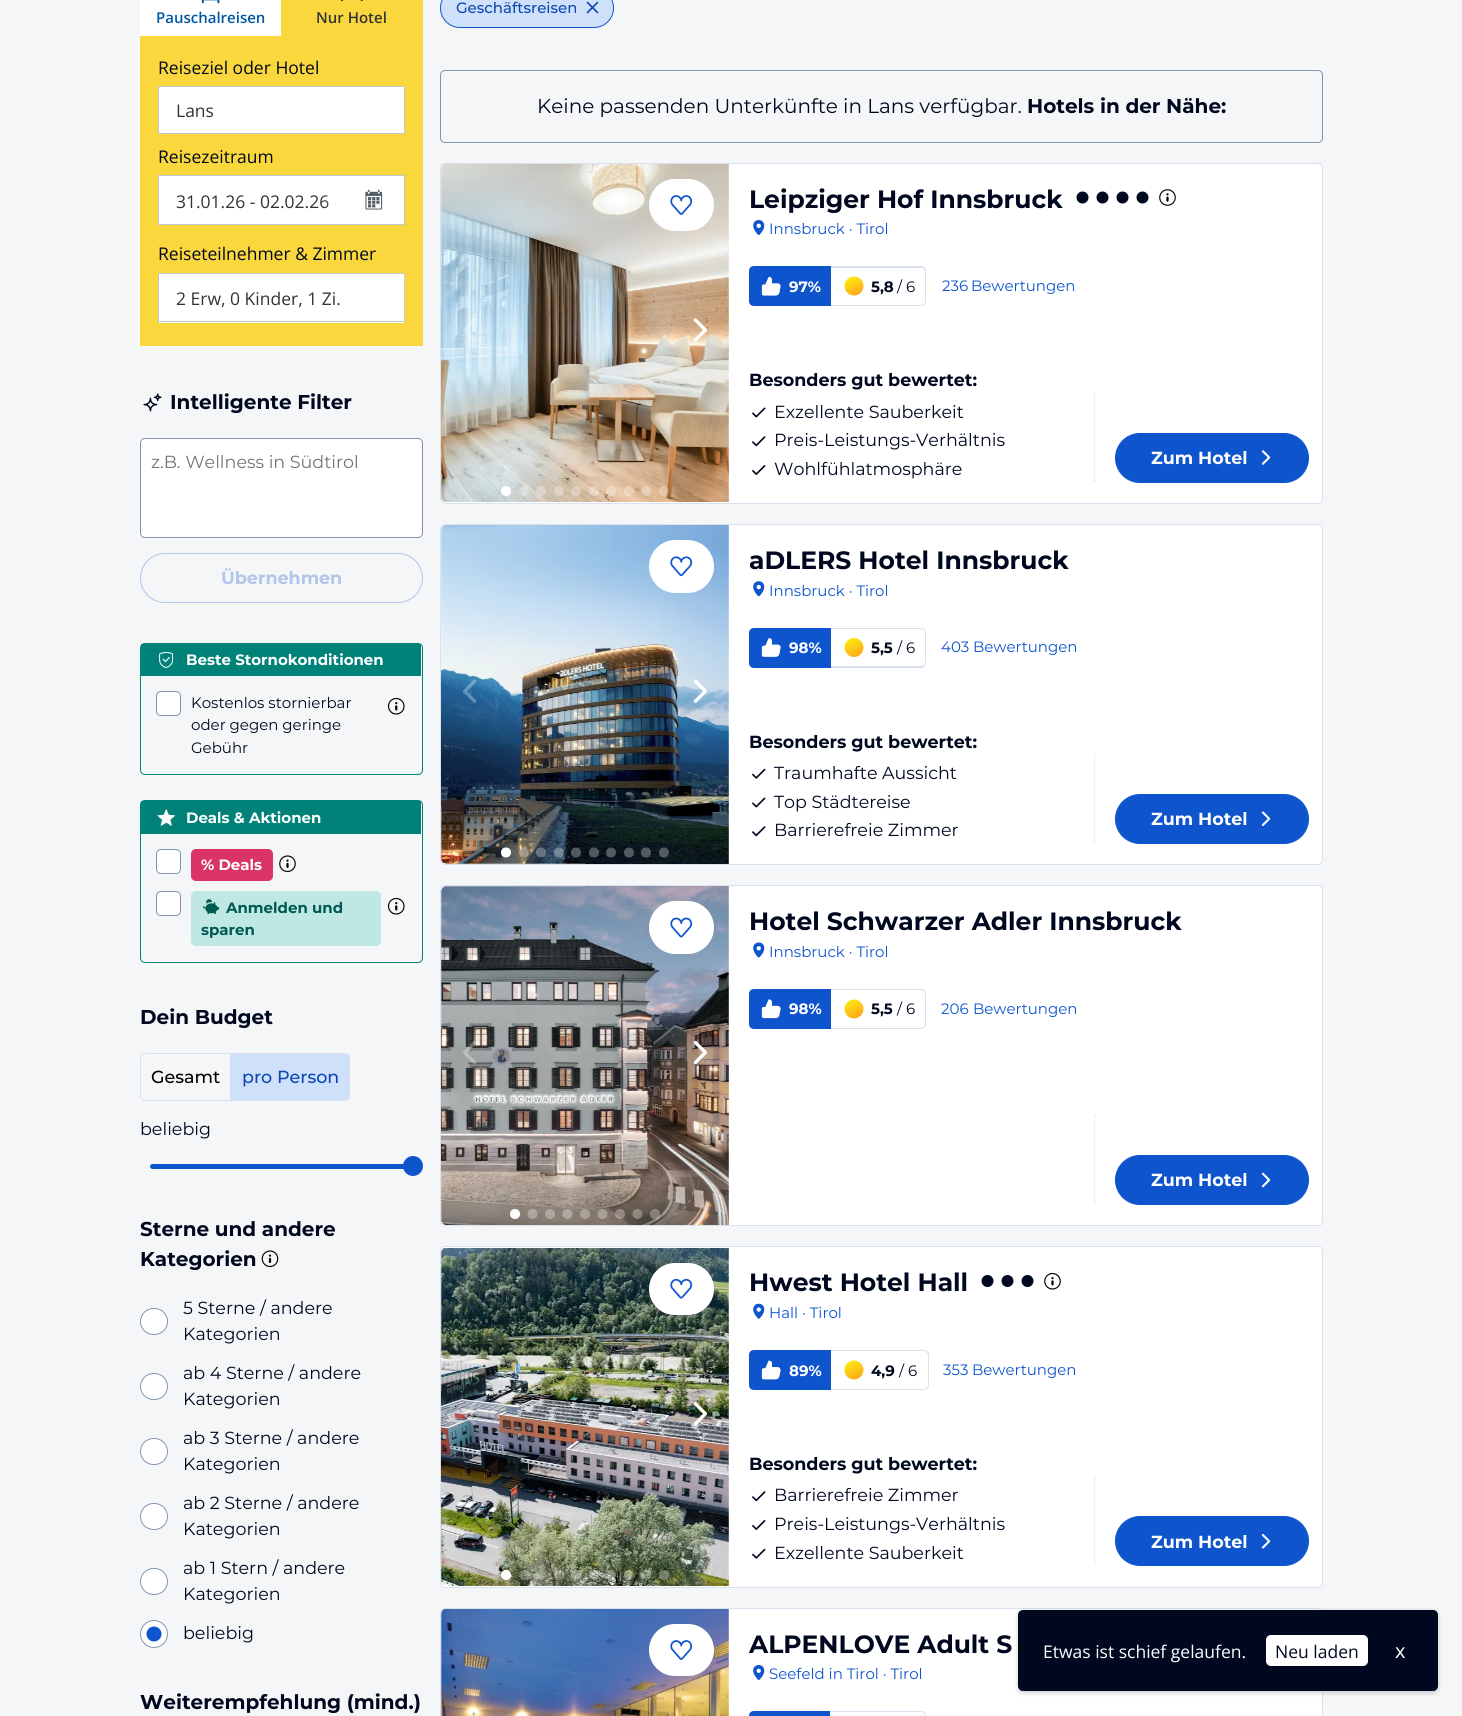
#include <cairo/cairo.h>
#include <math.h>
#include <stddef.h>

static cairo_t *cr;

static void use_color(int r, int g, int b) {
  cairo_set_source_rgb(cr, r / 255.0, g / 255.0, b / 255.0);
}

static void text(double x, double y, const char *s, const char *family, double size, int italic, int bold, int r, int g, int b) {
  cairo_select_font_face(cr, family, italic ? CAIRO_FONT_SLANT_ITALIC : CAIRO_FONT_SLANT_NORMAL,
    bold ? CAIRO_FONT_WEIGHT_BOLD : CAIRO_FONT_WEIGHT_NORMAL);
  cairo_set_font_size(cr, size);
  use_color(r, g, b);
  cairo_move_to(cr, x, y);
  cairo_show_text(cr, s);
}

static void box(double x, double y, double w, double h, int r, int g, int b) {
  use_color(r, g, b);
  cairo_rectangle(cr, x, y, w, h);
  cairo_fill(cr);
}

static void round_rect(double x, double y, double w, double h, double r) {
  cairo_new_sub_path(cr);
  cairo_arc(cr, x + w - r, y + h - r, r, 0, M_PI / 2);
  cairo_arc(cr, x + r, y + h - r, r, M_PI / 2, M_PI);
  cairo_arc(cr, x + r, y + r, r, M_PI, 1.5 * M_PI);
  cairo_arc(cr, x + w - r, y + r, r, 1.5 * M_PI, 2 * M_PI);
  cairo_close_path(cr);
}

static void shadow(double x, double y, double w, double h, double r, double blur, double alpha) {
  cairo_push_group_with_content(cr, CAIRO_CONTENT_ALPHA);
  cairo_set_operator(cr, CAIRO_OPERATOR_SOURCE);
  for (int i = 15; i >= -15 && fmin(w, h) + blur * i / 3 > 0; i -= 2) {
    double e = blur * i / 6;
    cairo_set_source_rgba(cr, 0, 0, 0, alpha * erfc((i - 1) / 8.5) / 2);
    round_rect(x - e, y - e, w + 2 * e, h + 2 * e, fmax(0, fmin(r + e + blur * .6, fmin(w, h) / 2 + e)));
    cairo_fill(cr);
  }
  cairo_pattern_t *soft = cairo_pop_group(cr);
  cairo_mask(cr, soft);
  cairo_pattern_destroy(soft);
}

static void picture(const char *path, double x, double y, double w, double h) {
  cairo_surface_t *image = cairo_image_surface_create_from_png(path);
  cairo_save(cr);
  cairo_set_source_surface(cr, image, x, y);
  cairo_rectangle(cr, x, y, w, h);
  cairo_fill(cr);
  cairo_restore(cr);
  cairo_surface_destroy(image);
}

static void draw(void) {
  cairo_pattern_t *gradient;
  use_color(245, 246, 247);
  cairo_paint(cr);
  use_color(207, 224, 251);
  round_rect(440.5, -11.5, 173, 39, 19.5);
  cairo_fill_preserve(cr);
  use_color(14, 85, 205);
  cairo_set_line_width(cr, 1);
  cairo_stroke(cr);
  picture("img_01.png", 586, 1, 13, 13);
  box(140, 0, 141, 36, 255, 255, 255);
  picture("img_02.png", 201, 0, 19, 4);
  box(281, 0, 142, 36, 250, 215, 60);
  picture("img_03.png", 341, 0, 22, 2);
  box(140, 36, 283, 310, 250, 215, 60);
  use_color(255, 255, 255);
  cairo_rectangle(cr, 158.5, 86.5, 246, 47);
  cairo_fill_preserve(cr);
  use_color(194, 199, 204);
  cairo_stroke(cr);
  box(159, 176, 245, 48, 255, 255, 255);
  box(158, 175, 247, 1, 194, 199, 204);
  box(404, 175, 1, 50, 194, 199, 204);
  box(158, 224, 247, 1, 194, 199, 204);
  picture("img_04.png", 365, 189, 18, 21);
  box(158, 175, 1, 50, 194, 199, 204);
  box(159, 274, 245, 49, 255, 255, 255);
  box(158, 273, 247, 1, 194, 199, 204);
  box(404, 273, 1, 50, 204, 204, 204);
  box(158, 321, 247, 1, 194, 199, 204);
  box(158, 273, 1, 50, 194, 199, 204);
  picture("img_05.png", 143, 393, 19, 19);
  use_color(255, 255, 255);
  round_rect(140.5, 438.5, 282, 99, 4.5);
  cairo_fill_preserve(cr);
  use_color(132, 148, 178);
  cairo_stroke(cr);
  round_rect(140.5, 553.5, 282, 49, 24.5);
  use_color(176, 198, 234);
  cairo_stroke(cr);
  round_rect(140.5, 643.5, 282, 131, 4.5);
  use_color(0, 130, 120);
  cairo_stroke(cr);
  box(141, 644, 280, 32, 0, 130, 120);
  picture("img_06.png", 159, 652, 15, 16);
  use_color(255, 255, 255);
  round_rect(156.5, 691.5, 24, 24, 4.5);
  cairo_fill_preserve(cr);
  use_color(132, 148, 178);
  cairo_stroke(cr);
  picture("img_07.png", 387, 697, 18, 18);
  round_rect(140.5, 800.5, 282, 162, 4.5);
  use_color(0, 130, 120);
  cairo_stroke(cr);
  box(141, 801, 280, 33, 0, 130, 120);
  picture("img_08.png", 157, 809, 18, 17);
  use_color(255, 255, 255);
  round_rect(156.5, 849.5, 24, 24, 4.5);
  cairo_fill_preserve(cr);
  use_color(132, 148, 178);
  cairo_stroke(cr);
  use_color(218, 52, 102);
  round_rect(191, 849, 82, 32, 5);
  cairo_fill(cr);
  picture("img_09.png", 279, 855, 17, 18);
  use_color(255, 255, 255);
  round_rect(156.5, 891.5, 24, 24, 4.5);
  cairo_fill_preserve(cr);
  use_color(132, 148, 178);
  cairo_stroke(cr);
  use_color(191, 232, 229);
  round_rect(191, 891, 190, 55, 5);
  cairo_fill(cr);
  picture("img_10.png", 203, 899, 17, 16);
  picture("img_07.png", 387, 897, 18, 18);
  round_rect(140.5, 1053.5, 209, 47, 4.5);
  use_color(217, 225, 238);
  cairo_stroke(cr);
  box(230, 1054, 1, 46, 217, 225, 238);
  box(231, 1054, 118, 46, 207, 224, 251);
  use_color(14, 85, 205);
  round_rect(150, 1164, 263, 5, 2.5);
  cairo_fill(cr);
  cairo_arc(cr, 413, 1166, 10, 0, 2 * M_PI);
  cairo_fill(cr);
  picture("img_11.png", 261, 1250, 18, 18);
  use_color(255, 255, 255);
  round_rect(140.5, 1308.5, 27, 26, 13);
  cairo_fill_preserve(cr);
  use_color(132, 148, 178);
  cairo_stroke(cr);
  use_color(255, 255, 255);
  round_rect(140.5, 1373.5, 27, 26, 13);
  cairo_fill_preserve(cr);
  use_color(132, 148, 178);
  cairo_stroke(cr);
  use_color(255, 255, 255);
  round_rect(140.5, 1438.5, 27, 26, 13);
  cairo_fill_preserve(cr);
  use_color(132, 148, 178);
  cairo_stroke(cr);
  use_color(255, 255, 255);
  round_rect(140.5, 1503.5, 27, 26, 13);
  cairo_fill_preserve(cr);
  use_color(132, 148, 178);
  cairo_stroke(cr);
  use_color(255, 255, 255);
  round_rect(140.5, 1568.5, 27, 26, 13);
  cairo_fill_preserve(cr);
  use_color(132, 148, 178);
  cairo_stroke(cr);
  use_color(255, 255, 255);
  cairo_arc(cr, 154, 1634, 13.5, 0, 2 * M_PI);
  cairo_fill_preserve(cr);
  use_color(132, 148, 178);
  cairo_stroke(cr);
  use_color(14, 85, 205);
  cairo_arc(cr, 154, 1634, 7.5, 0, 2 * M_PI);
  cairo_fill(cr);
  round_rect(440.5, 70.5, 882, 72, 4.5);
  use_color(132, 148, 178);
  cairo_stroke(cr);
  use_color(255, 255, 255);
  round_rect(440.5, 163.5, 882, 340, 4.5);
  cairo_fill_preserve(cr);
  use_color(217, 225, 238);
  cairo_stroke(cr);
  use_color(255, 255, 255);
  cairo_new_path(cr);
  cairo_move_to(cr, 446, 164);
  cairo_line_to(cr, 729, 164);
  cairo_line_to(cr, 729, 503);
  cairo_line_to(cr, 446, 503);
  cairo_curve_to(cr, 443, 503, 441, 501, 441, 498);
  cairo_line_to(cr, 441, 169);
  cairo_curve_to(cr, 441, 166, 443, 164, 446, 164);
  cairo_close_path(cr);
  cairo_fill(cr);
  picture("img_12.png", 441, 164, 288, 338);
  picture("img_13.png", 463, 318, 13, 24);
  picture("img_14.png", 693, 318, 14, 24);
  cairo_arc(cr, 506, 491, 5, 0, 2 * M_PI);
  cairo_fill(cr);
  cairo_set_source_rgba(cr, 1, 1, 1, 0.3);
  cairo_arc(cr, 524, 491, 5, 0, 2 * M_PI);
  cairo_fill(cr);
  cairo_arc(cr, 541, 491, 5, 0, 2 * M_PI);
  cairo_fill(cr);
  cairo_arc(cr, 559, 491, 5, 0, 2 * M_PI);
  cairo_fill(cr);
  cairo_arc(cr, 576, 491, 5, 0, 2 * M_PI);
  cairo_fill(cr);
  cairo_arc(cr, 594, 491, 5, 0, 2 * M_PI);
  cairo_fill(cr);
  cairo_arc(cr, 611, 491, 5, 0, 2 * M_PI);
  cairo_fill(cr);
  cairo_arc(cr, 629, 491, 5, 0, 2 * M_PI);
  cairo_fill(cr);
  cairo_arc(cr, 646, 491, 5, 0, 2 * M_PI);
  cairo_fill(cr);
  cairo_arc(cr, 664, 491, 5, 0, 2 * M_PI);
  cairo_fill(cr);
  use_color(255, 255, 255);
  round_rect(649, 179, 65, 52, 26);
  cairo_fill(cr);
  picture("img_15.png", 670, 195, 23, 20);
  use_color(0, 8, 32);
  cairo_arc(cr, 1082.5, 197.5, 6, 0, 2 * M_PI);
  cairo_fill(cr);
  cairo_arc(cr, 1102.5, 197.5, 6, 0, 2 * M_PI);
  cairo_fill(cr);
  cairo_arc(cr, 1122.5, 197.5, 6, 0, 2 * M_PI);
  cairo_fill(cr);
  cairo_arc(cr, 1142.5, 197.5, 6, 0, 2 * M_PI);
  cairo_fill(cr);
  picture("img_16.png", 1159, 189, 17, 17);
  picture("img_17.png", 753, 220, 12, 15);
  use_color(14, 85, 205);
  cairo_new_path(cr);
  cairo_move_to(cr, 754, 266);
  cairo_line_to(cr, 831, 266);
  cairo_line_to(cr, 831, 306);
  cairo_line_to(cr, 754, 306);
  cairo_curve_to(cr, 751, 306, 749, 304, 749, 301);
  cairo_line_to(cr, 749, 271);
  cairo_curve_to(cr, 749, 268, 751, 266, 754, 266);
  cairo_close_path(cr);
  cairo_fill(cr);
  picture("img_18.png", 761, 276, 20, 20);
  use_color(217, 225, 238);
  cairo_set_fill_rule(cr, CAIRO_FILL_RULE_EVEN_ODD);
  cairo_new_path(cr);
  cairo_move_to(cr, 831, 266);
  cairo_line_to(cr, 921, 266);
  cairo_curve_to(cr, 924, 266, 926, 268, 926, 271);
  cairo_line_to(cr, 926, 301);
  cairo_curve_to(cr, 926, 304, 924, 306, 921, 306);
  cairo_line_to(cr, 831, 306);
  cairo_close_path(cr);
  cairo_move_to(cr, 831, 268);
  cairo_line_to(cr, 921, 268);
  cairo_curve_to(cr, 923, 268, 925, 269, 925, 271);
  cairo_line_to(cr, 925, 301);
  cairo_curve_to(cr, 925, 303, 923, 305, 921, 305);
  cairo_line_to(cr, 831, 305);
  cairo_close_path(cr);
  cairo_fill(cr);
  gradient = cairo_pattern_create_linear(850, 278, 858, 294);
  cairo_pattern_add_color_stop_rgba(gradient, 0, 0.988, 0.906, 0.059, 1);
  cairo_pattern_add_color_stop_rgba(gradient, 1, 0.996, 0.675, 0.106, 1);
  cairo_set_source(cr, gradient);
  cairo_pattern_destroy(gradient);
  cairo_arc(cr, 854, 286, 9.5, 0, 2 * M_PI);
  cairo_fill(cr);
  picture("img_19.png", 752, 407, 14, 11);
  picture("img_20.png", 752, 436, 14, 11);
  picture("img_21.png", 752, 465, 14, 10);
  cairo_new_path(cr);
  cairo_move_to(cr, 1094.5, 392.5);
  cairo_line_to(cr, 1094.5, 482.5);
  use_color(217, 225, 238);
  cairo_set_line_width(cr, 1.2);
  cairo_set_dash(cr, (double[]){1.25, 1.25}, 2, 0);
  cairo_stroke(cr);
  use_color(14, 85, 205);
  round_rect(1115.5, 433.5, 193, 49, 24.5);
  cairo_fill_preserve(cr);
  cairo_set_line_width(cr, 1);
  cairo_set_dash(cr, NULL, 0, 0);
  cairo_stroke(cr);
  picture("img_22.png", 1261, 450, 10, 15);
  use_color(255, 255, 255);
  round_rect(440.5, 524.5, 882, 340, 4.5);
  cairo_fill_preserve(cr);
  use_color(217, 225, 238);
  cairo_stroke(cr);
  use_color(255, 255, 255);
  cairo_new_path(cr);
  cairo_move_to(cr, 446, 525);
  cairo_line_to(cr, 729, 525);
  cairo_line_to(cr, 729, 864);
  cairo_line_to(cr, 446, 864);
  cairo_curve_to(cr, 443, 864, 441, 862, 441, 859);
  cairo_line_to(cr, 441, 530);
  cairo_curve_to(cr, 441, 527, 443, 525, 446, 525);
  cairo_close_path(cr);
  cairo_fill(cr);
  picture("img_23.png", 441, 525, 288, 339);
  picture("img_24.png", 463, 679, 14, 24);
  picture("img_25.png", 693, 679, 14, 24);
  cairo_arc(cr, 506, 852.5, 5, 0, 2 * M_PI);
  cairo_fill(cr);
  cairo_set_source_rgba(cr, 1, 1, 1, 0.3);
  cairo_arc(cr, 524, 852.5, 5, 0, 2 * M_PI);
  cairo_fill(cr);
  cairo_arc(cr, 541, 852.5, 5, 0, 2 * M_PI);
  cairo_fill(cr);
  cairo_arc(cr, 559, 852.5, 5, 0, 2 * M_PI);
  cairo_fill(cr);
  cairo_arc(cr, 576, 852.5, 5, 0, 2 * M_PI);
  cairo_fill(cr);
  cairo_arc(cr, 594, 852.5, 5, 0, 2 * M_PI);
  cairo_fill(cr);
  cairo_arc(cr, 611, 852.5, 5, 0, 2 * M_PI);
  cairo_fill(cr);
  cairo_arc(cr, 629, 852.5, 5, 0, 2 * M_PI);
  cairo_fill(cr);
  cairo_arc(cr, 646, 852.5, 5, 0, 2 * M_PI);
  cairo_fill(cr);
  cairo_arc(cr, 664, 852.5, 5, 0, 2 * M_PI);
  cairo_fill(cr);
  use_color(255, 255, 255);
  round_rect(649, 540, 65, 53, 26.5);
  cairo_fill(cr);
  picture("img_26.png", 670, 556, 23, 21);
  picture("img_27.png", 753, 581, 12, 16);
  use_color(14, 85, 205);
  cairo_new_path(cr);
  cairo_move_to(cr, 754, 628);
  cairo_line_to(cr, 831, 628);
  cairo_line_to(cr, 831, 668);
  cairo_line_to(cr, 754, 668);
  cairo_curve_to(cr, 751, 668, 749, 666, 749, 663);
  cairo_line_to(cr, 749, 633);
  cairo_curve_to(cr, 749, 630, 751, 628, 754, 628);
  cairo_close_path(cr);
  cairo_fill(cr);
  picture("img_28.png", 761, 638, 20, 19);
  use_color(217, 225, 238);
  cairo_new_path(cr);
  cairo_move_to(cr, 831, 628);
  cairo_line_to(cr, 921, 628);
  cairo_curve_to(cr, 924, 628, 926, 630, 926, 632);
  cairo_line_to(cr, 926, 662);
  cairo_curve_to(cr, 926, 665, 924, 668, 921, 668);
  cairo_line_to(cr, 831, 668);
  cairo_close_path(cr);
  cairo_move_to(cr, 831, 629);
  cairo_line_to(cr, 921, 629);
  cairo_curve_to(cr, 923, 629, 925, 630, 925, 632);
  cairo_line_to(cr, 925, 662);
  cairo_curve_to(cr, 925, 665, 923, 666, 921, 666);
  cairo_line_to(cr, 831, 666);
  cairo_close_path(cr);
  cairo_fill(cr);
  gradient = cairo_pattern_create_linear(850, 640, 858, 655);
  cairo_pattern_add_color_stop_rgba(gradient, 0, 0.988, 0.906, 0.059, 1);
  cairo_pattern_add_color_stop_rgba(gradient, 1, 0.996, 0.675, 0.106, 1);
  cairo_set_source(cr, gradient);
  cairo_pattern_destroy(gradient);
  cairo_arc(cr, 854, 647.5, 9.5, 0, 2 * M_PI);
  cairo_fill(cr);
  picture("img_29.png", 752, 768, 14, 11);
  picture("img_19.png", 752, 797, 14, 11);
  picture("img_20.png", 752, 826, 14, 11);
  cairo_new_path(cr);
  cairo_move_to(cr, 1094.5, 754);
  cairo_line_to(cr, 1094.5, 844);
  use_color(217, 225, 238);
  cairo_set_line_width(cr, 1.2);
  cairo_set_dash(cr, (double[]){1.25, 1.25}, 2, 0);
  cairo_stroke(cr);
  use_color(14, 85, 205);
  round_rect(1115.5, 794.5, 193, 49, 24.5);
  cairo_fill_preserve(cr);
  cairo_set_line_width(cr, 1);
  cairo_set_dash(cr, NULL, 0, 0);
  cairo_stroke(cr);
  picture("img_30.png", 1261, 811, 10, 15);
  use_color(255, 255, 255);
  round_rect(440.5, 885.5, 882, 340, 4.5);
  cairo_fill_preserve(cr);
  use_color(217, 225, 238);
  cairo_stroke(cr);
  use_color(255, 255, 255);
  cairo_new_path(cr);
  cairo_move_to(cr, 446, 886);
  cairo_line_to(cr, 729, 886);
  cairo_line_to(cr, 729, 1225);
  cairo_line_to(cr, 446, 1225);
  cairo_curve_to(cr, 443, 1225, 441, 1223, 441, 1220);
  cairo_line_to(cr, 441, 891);
  cairo_curve_to(cr, 441, 888, 443, 886, 446, 886);
  cairo_close_path(cr);
  cairo_fill(cr);
  picture("img_31.png", 441, 886, 288, 339);
  picture("img_32.png", 463, 1040, 14, 25);
  picture("img_33.png", 693, 1040, 15, 25);
  cairo_arc(cr, 515, 1214, 5, 0, 2 * M_PI);
  cairo_fill(cr);
  cairo_set_source_rgba(cr, 1, 1, 1, 0.3);
  cairo_arc(cr, 532.5, 1214, 5, 0, 2 * M_PI);
  cairo_fill(cr);
  cairo_arc(cr, 550, 1214, 5, 0, 2 * M_PI);
  cairo_fill(cr);
  cairo_arc(cr, 567.5, 1214, 5, 0, 2 * M_PI);
  cairo_fill(cr);
  cairo_arc(cr, 585, 1214, 5, 0, 2 * M_PI);
  cairo_fill(cr);
  cairo_arc(cr, 602.5, 1214, 5, 0, 2 * M_PI);
  cairo_fill(cr);
  cairo_arc(cr, 620, 1214, 5, 0, 2 * M_PI);
  cairo_fill(cr);
  cairo_arc(cr, 637.5, 1214, 5, 0, 2 * M_PI);
  cairo_fill(cr);
  cairo_arc(cr, 655, 1214, 5, 0, 2 * M_PI);
  cairo_fill(cr);
  use_color(255, 255, 255);
  round_rect(649, 901, 65, 53, 26.5);
  cairo_fill(cr);
  picture("img_34.png", 670, 917, 23, 21);
  picture("img_35.png", 753, 942, 12, 16);
  use_color(14, 85, 205);
  cairo_new_path(cr);
  cairo_move_to(cr, 754, 989);
  cairo_line_to(cr, 831, 989);
  cairo_line_to(cr, 831, 1029);
  cairo_line_to(cr, 754, 1029);
  cairo_curve_to(cr, 751, 1029, 749, 1027, 749, 1024);
  cairo_line_to(cr, 749, 994);
  cairo_curve_to(cr, 749, 991, 751, 989, 754, 989);
  cairo_close_path(cr);
  cairo_fill(cr);
  picture("img_36.png", 761, 999, 20, 20);
  use_color(217, 225, 238);
  cairo_new_path(cr);
  cairo_move_to(cr, 831, 989);
  cairo_line_to(cr, 921, 989);
  cairo_curve_to(cr, 924, 989, 926, 991, 926, 994);
  cairo_line_to(cr, 926, 1024);
  cairo_curve_to(cr, 926, 1027, 924, 1029, 921, 1029);
  cairo_line_to(cr, 831, 1029);
  cairo_close_path(cr);
  cairo_move_to(cr, 831, 990);
  cairo_line_to(cr, 921, 990);
  cairo_curve_to(cr, 923, 990, 925, 992, 925, 994);
  cairo_line_to(cr, 925, 1024);
  cairo_curve_to(cr, 925, 1026, 923, 1028, 921, 1028);
  cairo_line_to(cr, 831, 1028);
  cairo_close_path(cr);
  cairo_fill(cr);
  gradient = cairo_pattern_create_linear(850, 1001, 858, 1016);
  cairo_pattern_add_color_stop_rgba(gradient, 0, 0.988, 0.906, 0.059, 1);
  cairo_pattern_add_color_stop_rgba(gradient, 1, 0.996, 0.675, 0.106, 1);
  cairo_set_source(cr, gradient);
  cairo_pattern_destroy(gradient);
  cairo_arc(cr, 854, 1009, 9.5, 0, 2 * M_PI);
  cairo_fill(cr);
  cairo_new_path(cr);
  cairo_move_to(cr, 1094.5, 1115);
  cairo_line_to(cr, 1094.5, 1205);
  use_color(217, 225, 238);
  cairo_set_line_width(cr, 1.2);
  cairo_set_dash(cr, (double[]){1.25, 1.25}, 2, 0);
  cairo_stroke(cr);
  use_color(14, 85, 205);
  round_rect(1115.5, 1155.5, 193, 49, 24.5);
  cairo_fill_preserve(cr);
  cairo_set_line_width(cr, 1);
  cairo_set_dash(cr, NULL, 0, 0);
  cairo_stroke(cr);
  picture("img_37.png", 1261, 1172, 10, 16);
  use_color(255, 255, 255);
  round_rect(440.5, 1246.5, 882, 341, 4.5);
  cairo_fill_preserve(cr);
  use_color(217, 225, 238);
  cairo_stroke(cr);
  picture("img_38.png", 441, 1248, 288, 338);
  picture("img_39.png", 463, 1402, 14, 24);
  picture("img_40.png", 693, 1402, 15, 24);
  use_color(255, 255, 255);
  cairo_arc(cr, 506, 1575, 5, 0, 2 * M_PI);
  cairo_fill(cr);
  cairo_set_source_rgba(cr, 1, 1, 1, 0.3);
  cairo_arc(cr, 524, 1575, 5, 0, 2 * M_PI);
  cairo_fill(cr);
  cairo_arc(cr, 541, 1575, 5, 0, 2 * M_PI);
  cairo_fill(cr);
  cairo_arc(cr, 559, 1575, 5, 0, 2 * M_PI);
  cairo_fill(cr);
  cairo_arc(cr, 576, 1575, 5, 0, 2 * M_PI);
  cairo_fill(cr);
  cairo_arc(cr, 594, 1575, 5, 0, 2 * M_PI);
  cairo_fill(cr);
  cairo_arc(cr, 611, 1575, 5, 0, 2 * M_PI);
  cairo_fill(cr);
  cairo_arc(cr, 629, 1575, 5, 0, 2 * M_PI);
  cairo_fill(cr);
  cairo_arc(cr, 646, 1575, 5, 0, 2 * M_PI);
  cairo_fill(cr);
  cairo_arc(cr, 664, 1575, 5, 0, 2 * M_PI);
  cairo_fill(cr);
  use_color(255, 255, 255);
  round_rect(649, 1263, 65, 52, 26);
  cairo_fill(cr);
  picture("img_41.png", 670, 1278, 23, 21);
  use_color(0, 8, 32);
  cairo_arc(cr, 987.5, 1281, 6, 0, 2 * M_PI);
  cairo_fill(cr);
  cairo_arc(cr, 1007.5, 1281, 6, 0, 2 * M_PI);
  cairo_fill(cr);
  cairo_arc(cr, 1027.5, 1281, 6, 0, 2 * M_PI);
  cairo_fill(cr);
  picture("img_42.png", 1044, 1272, 17, 18);
  picture("img_43.png", 753, 1303, 12, 16);
  use_color(14, 85, 205);
  cairo_new_path(cr);
  cairo_move_to(cr, 754, 1350);
  cairo_line_to(cr, 831, 1350);
  cairo_line_to(cr, 831, 1390);
  cairo_line_to(cr, 754, 1390);
  cairo_curve_to(cr, 751, 1390, 749, 1388, 749, 1385);
  cairo_line_to(cr, 749, 1355);
  cairo_curve_to(cr, 749, 1352, 751, 1350, 754, 1350);
  cairo_close_path(cr);
  cairo_fill(cr);
  picture("img_44.png", 761, 1360, 20, 20);
  use_color(217, 225, 238);
  cairo_new_path(cr);
  cairo_move_to(cr, 831, 1350);
  cairo_line_to(cr, 924, 1350);
  cairo_curve_to(cr, 927, 1350, 929, 1352, 929, 1355);
  cairo_line_to(cr, 929, 1385);
  cairo_curve_to(cr, 929, 1388, 927, 1390, 924, 1390);
  cairo_line_to(cr, 831, 1390);
  cairo_close_path(cr);
  cairo_move_to(cr, 831, 1351);
  cairo_line_to(cr, 924, 1351);
  cairo_curve_to(cr, 926, 1351, 928, 1353, 928, 1355);
  cairo_line_to(cr, 928, 1385);
  cairo_curve_to(cr, 928, 1387, 926, 1389, 924, 1389);
  cairo_line_to(cr, 831, 1389);
  cairo_close_path(cr);
  cairo_fill(cr);
  gradient = cairo_pattern_create_linear(850, 1362, 858, 1378);
  cairo_pattern_add_color_stop_rgba(gradient, 0, 0.988, 0.906, 0.059, 1);
  cairo_pattern_add_color_stop_rgba(gradient, 1, 0.996, 0.675, 0.106, 1);
  cairo_set_source(cr, gradient);
  cairo_pattern_destroy(gradient);
  cairo_arc(cr, 854, 1370, 9.5, 0, 2 * M_PI);
  cairo_fill(cr);
  picture("img_20.png", 752, 1491, 14, 11);
  picture("img_21.png", 752, 1520, 14, 10);
  picture("img_29.png", 752, 1548, 14, 11);
  cairo_new_path(cr);
  cairo_move_to(cr, 1094.5, 1476);
  cairo_line_to(cr, 1094.5, 1566);
  use_color(217, 225, 238);
  cairo_set_line_width(cr, 1.2);
  cairo_set_dash(cr, (double[]){1.25, 1.25}, 2, 0);
  cairo_stroke(cr);
  use_color(14, 85, 205);
  round_rect(1115.5, 1516.5, 193, 49, 24.5);
  cairo_fill_preserve(cr);
  cairo_set_line_width(cr, 1);
  cairo_set_dash(cr, NULL, 0, 0);
  cairo_stroke(cr);
  picture("img_45.png", 1261, 1534, 10, 15);
  use_color(255, 255, 255);
  round_rect(440.5, 1608.5, 882, 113, 4.5);
  cairo_fill_preserve(cr);
  use_color(217, 225, 238);
  cairo_stroke(cr);
  use_color(255, 255, 255);
  cairo_new_path(cr);
  cairo_move_to(cr, 446, 1609);
  cairo_line_to(cr, 729, 1609);
  cairo_line_to(cr, 729, 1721);
  cairo_line_to(cr, 446, 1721);
  cairo_curve_to(cr, 443, 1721, 441, 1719, 441, 1716);
  cairo_line_to(cr, 441, 1614);
  cairo_curve_to(cr, 441, 1611, 443, 1609, 446, 1609);
  cairo_close_path(cr);
  cairo_fill(cr);
  picture("img_46.png", 441, 1609, 288, 107);
  round_rect(649, 1624, 65, 52, 26);
  cairo_fill(cr);
  picture("img_15.png", 670, 1640, 23, 20);
  picture("img_17.png", 753, 1665, 12, 15);
  use_color(14, 85, 205);
  cairo_new_path(cr);
  cairo_move_to(cr, 754, 1711);
  cairo_line_to(cr, 830, 1711);
  cairo_line_to(cr, 830, 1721);
  cairo_line_to(cr, 754, 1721);
  cairo_curve_to(cr, 751, 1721, 749, 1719, 749, 1716);
  cairo_curve_to(cr, 749, 1713, 751, 1711, 754, 1711);
  cairo_close_path(cr);
  cairo_fill(cr);
  use_color(217, 225, 238);
  cairo_new_path(cr);
  cairo_move_to(cr, 830, 1711);
  cairo_line_to(cr, 921, 1711);
  cairo_curve_to(cr, 924, 1711, 926, 1713, 926, 1716);
  cairo_line_to(cr, 926, 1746);
  cairo_curve_to(cr, 926, 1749, 924, 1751, 921, 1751);
  cairo_line_to(cr, 830, 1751);
  cairo_close_path(cr);
  cairo_move_to(cr, 830, 1712);
  cairo_line_to(cr, 921, 1712);
  cairo_curve_to(cr, 923, 1712, 925, 1714, 925, 1716);
  cairo_line_to(cr, 925, 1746);
  cairo_curve_to(cr, 925, 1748, 923, 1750, 921, 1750);
  cairo_line_to(cr, 830, 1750);
  cairo_close_path(cr);
  cairo_fill(cr);
  use_color(0, 8, 32);
  shadow(1018, 1611, 420, 82, 5, 2.5, 0.2);
  use_color(0, 8, 32);
  round_rect(1018, 1610, 420, 81, 5);
  cairo_fill(cr);
  use_color(255, 255, 255);
  round_rect(1266.5, 1635.5, 101, 30, 4.5);
  cairo_fill_preserve(cr);
  cairo_stroke(cr);
  text(456, 13, "Geschäftsreisen", "Montserrat Medium", 15, 0, 0, 12, 72, 176);
  text(156, 23, "Pauschalreisen", "Open Sans SemiBold", 15, 0, 0, 0, 88, 163);
  text(316, 23, "Nur Hotel", "Open Sans SemiBold", 15, 0, 0, 51, 51, 51);
  text(158, 74, "Reiseziel oder Hotel", "Open Sans", 17.5, 0, 0, 0, 8, 32);
  text(176, 117, "Lans", "Open Sans", 17.5, 0, 0, 51, 51, 51);
  text(158, 163, "Reisezeitraum", "Open Sans", 17.5, 0, 0, 0, 8, 32);
  text(176, 208, "31.01.26 - 02.02.26", "Open Sans", 17.5, 0, 0, 51, 51, 51);
  gradient = cairo_pattern_create_linear(325, 200, 360, 200);
  cairo_pattern_add_color_stop_rgba(gradient, 0, 1, 1, 1, 0);
  cairo_pattern_add_color_stop_rgba(gradient, 0.5, 1, 1, 1, 1);
  cairo_pattern_add_color_stop_rgba(gradient, 1, 1, 1, 1, 1);
  cairo_set_source(cr, gradient);
  cairo_pattern_destroy(gradient);
  cairo_rectangle(cr, 325, 195, 4, 13);
  cairo_fill(cr);
  text(158, 260, "Reiseteilnehmer & Zimmer", "Open Sans", 17.5, 0, 0, 0, 8, 32);
  text(176, 305, "2 Erw, 0 Kinder, 1 Zi.", "Open Sans", 17.5, 0, 0, 51, 51, 51);
  text(170, 409, "Intelligente Filter", "Montserrat", 20, 0, 1, 0, 8, 32);
  text(151, 468, "z.B. Wellness in Südtirol", "Montserrat", 17.5, 0, 0, 117, 117, 117);
  text(221, 584, "Übernehmen", "Montserrat", 17.5, 0, 1, 176, 198, 234);
  text(186, 665, "Beste Stornokonditionen", "Montserrat", 15, 0, 1, 255, 255, 255);
  text(191, 708, "Kostenlos stornierbar", "Montserrat", 15, 0, 0, 0, 8, 32);
  text(191, 730, "oder gegen geringe", "Montserrat", 15, 0, 0, 0, 8, 32);
  text(191, 753, "Gebühr", "Montserrat", 15, 0, 0, 0, 8, 32);
  text(186, 823, "Deals & Aktionen", "Montserrat", 15, 0, 1, 255, 255, 255);
  text(201, 870, "% Deals", "Montserrat", 15, 0, 1, 255, 255, 255);
  text(226, 913, "Anmelden und", "Montserrat", 15, 0, 1, 0, 90, 82);
  text(201, 935, "sparen", "Montserrat", 15, 0, 1, 0, 90, 82);
  text(140, 1024, "Dein Budget", "Montserrat", 20, 0, 1, 0, 8, 32);
  text(151, 1083, "Gesamt", "Montserrat Medium", 17.5, 0, 0, 0, 0, 0);
  text(242, 1083, "pro Person", "Montserrat Medium", 17.5, 0, 0, 12, 72, 176);
  text(140, 1135, "beliebig", "Montserrat", 17.5, 0, 0, 0, 8, 32);
  text(140, 1236, "Sterne und andere", "Montserrat", 20, 0, 1, 0, 8, 32);
  text(140, 1266, "Kategorien", "Montserrat", 20, 0, 1, 0, 8, 32);
  text(183, 1314, "5 Sterne / andere", "Montserrat", 17.5, 0, 0, 0, 8, 32);
  text(183, 1340, "Kategorien", "Montserrat", 17.5, 0, 0, 0, 8, 32);
  text(183, 1379, "ab 4 Sterne / andere", "Montserrat", 17.5, 0, 0, 0, 8, 32);
  text(183, 1405, "Kategorien", "Montserrat", 17.5, 0, 0, 0, 8, 32);
  text(183, 1444, "ab 3 Sterne / andere", "Montserrat", 17.5, 0, 0, 0, 8, 32);
  text(183, 1470, "Kategorien", "Montserrat", 17.5, 0, 0, 0, 8, 32);
  text(183, 1509, "ab 2 Sterne / andere", "Montserrat", 17.5, 0, 0, 0, 8, 32);
  text(183, 1535, "Kategorien", "Montserrat", 17.5, 0, 0, 0, 8, 32);
  text(183, 1574, "ab 1 Stern / andere", "Montserrat", 17.5, 0, 0, 0, 8, 32);
  text(183, 1600, "Kategorien", "Montserrat", 17.5, 0, 0, 0, 8, 32);
  text(183, 1639, "beliebig", "Montserrat", 17.5, 0, 0, 0, 8, 32);
  text(140, 1709, "Weiterempfehlung (mind.)", "Montserrat", 20, 0, 1, 0, 8, 32);
  text(537, 113, "Keine passenden Unterkünfte in Lans verfügbar.", "Montserrat", 20, 0, 0, 0, 8, 32);
  text(1027, 113, "Hotels in der Nähe:", "Montserrat", 20, 0, 1, 0, 8, 32);
  text(749, 208, "Leipziger Hof Innsbruck", "Montserrat", 25, 0, 1, 0, 8, 32);
  text(769, 234, "Innsbruck · Tirol", "Montserrat", 15, 0, 0, 14, 85, 205);
  text(789, 292, "97%", "Montserrat", 15, 0, 1, 255, 255, 255);
  text(871, 292, "5,8", "Montserrat", 15, 0, 1, 0, 8, 32);
  text(897, 292, "/ 6", "Montserrat", 15, 0, 0, 0, 8, 32);
  text(942, 291, "236", "Montserrat", 15, 0, 0, 14, 85, 205);
  text(971, 291, "Bewertungen", "Montserrat", 15, 0, 0, 14, 85, 205);
  text(749, 386, "Besonders gut bewertet:", "Montserrat", 17.5, 0, 1, 0, 8, 32);
  text(774, 418, "Exzellente Sauberkeit", "Montserrat", 17.5, 0, 0, 0, 8, 32);
  text(774, 446, "Preis-Leistungs-Verhältnis", "Montserrat", 17.5, 0, 0, 0, 8, 32);
  text(774, 475, "Wohlfühlatmosphäre", "Montserrat", 17.5, 0, 0, 0, 8, 32);
  text(1151, 464, "Zum Hotel", "Montserrat", 17.5, 0, 1, 255, 255, 255);
  text(749, 569, "aDLERS Hotel Innsbruck", "Montserrat", 25, 0, 1, 0, 8, 32);
  text(769, 596, "Innsbruck · Tirol", "Montserrat", 15, 0, 0, 14, 85, 205);
  text(789, 653, "98%", "Montserrat", 15, 0, 1, 255, 255, 255);
  text(871, 653, "5,5", "Montserrat", 15, 0, 1, 0, 8, 32);
  text(897, 653, "/ 6", "Montserrat", 15, 0, 0, 0, 8, 32);
  text(941, 652, "403", "Montserrat", 15, 0, 0, 14, 85, 205);
  text(973, 652, "Bewertungen", "Montserrat", 15, 0, 0, 14, 85, 205);
  text(749, 748, "Besonders gut bewertet:", "Montserrat", 17.5, 0, 1, 0, 8, 32);
  text(774, 779, "Traumhafte Aussicht", "Montserrat", 17.5, 0, 0, 0, 8, 32);
  text(774, 808, "Top Städtereise", "Montserrat", 17.5, 0, 0, 0, 8, 32);
  text(774, 836, "Barrierefreie Zimmer", "Montserrat", 17.5, 0, 0, 0, 8, 32);
  text(1151, 825, "Zum Hotel", "Montserrat", 17.5, 0, 1, 255, 255, 255);
  text(749, 930, "Hotel Schwarzer Adler Innsbruck", "Montserrat", 25, 0, 1, 0, 8, 32);
  text(769, 957, "Innsbruck · Tirol", "Montserrat", 15, 0, 0, 14, 85, 205);
  text(789, 1014, "98%", "Montserrat", 15, 0, 1, 255, 255, 255);
  text(871, 1014, "5,5", "Montserrat", 15, 0, 1, 0, 8, 32);
  text(897, 1014, "/ 6", "Montserrat", 15, 0, 0, 0, 8, 32);
  text(941, 1014, "206", "Montserrat", 15, 0, 0, 14, 85, 205);
  text(973, 1014, "Bewertungen", "Montserrat", 15, 0, 0, 14, 85, 205);
  text(1151, 1186, "Zum Hotel", "Montserrat", 17.5, 0, 1, 255, 255, 255);
  text(749, 1291, "Hwest Hotel Hall", "Montserrat", 25, 0, 1, 0, 8, 32);
  text(769, 1318, "Hall · Tirol", "Montserrat", 15, 0, 0, 14, 85, 205);
  text(789, 1376, "89%", "Montserrat", 15, 0, 1, 255, 255, 255);
  text(871, 1376, "4,9", "Montserrat", 15, 0, 1, 0, 8, 32);
  text(899, 1376, "/ 6", "Montserrat", 15, 0, 0, 0, 8, 32);
  text(943, 1375, "353", "Montserrat", 15, 0, 0, 14, 85, 205);
  text(972, 1375, "Bewertungen", "Montserrat", 15, 0, 0, 14, 85, 205);
  text(749, 1470, "Besonders gut bewertet:", "Montserrat", 17.5, 0, 1, 0, 8, 32);
  text(774, 1501, "Barrierefreie Zimmer", "Montserrat", 17.5, 0, 0, 0, 8, 32);
  text(774, 1530, "Preis-Leistungs-Verhältnis", "Montserrat", 17.5, 0, 0, 0, 8, 32);
  text(774, 1559, "Exzellente Sauberkeit", "Montserrat", 17.5, 0, 0, 0, 8, 32);
  text(1151, 1548, "Zum Hotel", "Montserrat", 17.5, 0, 1, 255, 255, 255);
  text(749, 1653, "ALPENLOVE Adult S", "Montserrat", 25, 0, 1, 0, 8, 32);
  text(769, 1679, "Seefeld in Tirol · Tirol", "Montserrat", 15, 0, 0, 14, 85, 205);
  text(1043, 1658, "Etwas ist schief gelaufen.", "Open Sans", 17.5, 0, 0, 255, 255, 255);
  text(1275, 1658, "Neu laden", "Open Sans", 17.5, 0, 0, 0, 8, 32);
  text(1395, 1658, "x", "Open Sans", 20, 0, 0, 255, 255, 255);
}

int main(void) {
  cairo_surface_t *surface = cairo_image_surface_create(CAIRO_FORMAT_RGB24, 1462, 1716);
  cr = cairo_create(surface);
  cairo_font_options_t *options = cairo_font_options_create();
  cairo_font_options_set_hint_metrics(options, CAIRO_HINT_METRICS_OFF);
  cairo_font_options_set_hint_style(options, CAIRO_HINT_STYLE_NONE);
  cairo_set_font_options(cr, options);
  cairo_set_miter_limit(cr, 4);
  draw();
  cairo_surface_write_to_png(surface, "out.png");
  cairo_font_options_destroy(options);
  cairo_destroy(cr);
  cairo_surface_destroy(surface);
  return 0;
}
